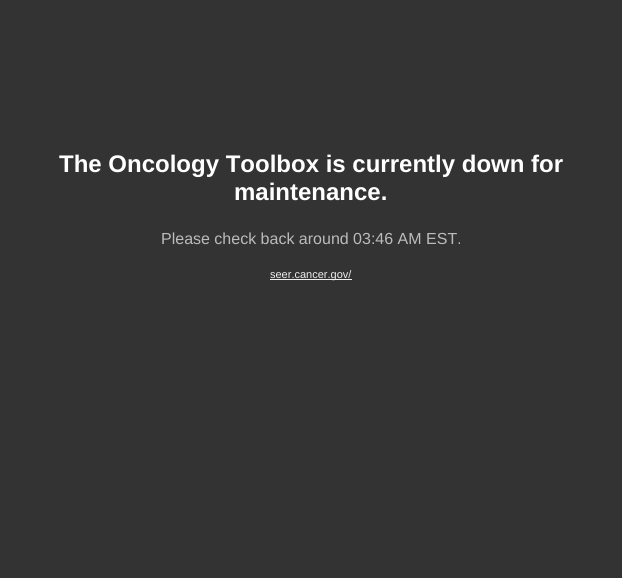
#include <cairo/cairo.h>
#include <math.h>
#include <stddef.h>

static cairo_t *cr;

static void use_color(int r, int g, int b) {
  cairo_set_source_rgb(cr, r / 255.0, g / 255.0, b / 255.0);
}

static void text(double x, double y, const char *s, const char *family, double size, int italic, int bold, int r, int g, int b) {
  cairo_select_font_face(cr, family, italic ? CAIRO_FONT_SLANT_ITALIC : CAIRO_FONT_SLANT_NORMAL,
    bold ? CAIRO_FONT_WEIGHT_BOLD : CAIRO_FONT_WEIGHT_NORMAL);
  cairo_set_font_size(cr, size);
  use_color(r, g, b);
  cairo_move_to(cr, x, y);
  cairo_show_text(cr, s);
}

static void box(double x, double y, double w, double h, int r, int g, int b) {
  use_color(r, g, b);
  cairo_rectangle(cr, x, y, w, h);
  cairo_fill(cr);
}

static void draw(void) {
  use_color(51, 51, 51);
  cairo_paint(cr);
  box(270, 279, 82, 1, 238, 238, 238);
  text(59, 172, "The Oncology Toolbox is currently down for", "Liberation Sans", 24, 0, 1, 255, 255, 255);
  text(234, 200, "maintenance.", "Liberation Sans", 24, 0, 1, 255, 255, 255);
  text(161, 244, "Please check back around 03:46 AM EST.", "Liberation Sans", 16, 0, 0, 187, 187, 187);
  text(270, 278, "seer.cancer.gov/", "Liberation Sans", 11, 0, 0, 238, 238, 238);
}

int main(void) {
  cairo_surface_t *surface = cairo_image_surface_create(CAIRO_FORMAT_RGB24, 622, 578);
  cr = cairo_create(surface);
  cairo_font_options_t *options = cairo_font_options_create();
  cairo_font_options_set_hint_metrics(options, CAIRO_HINT_METRICS_OFF);
  cairo_font_options_set_hint_style(options, CAIRO_HINT_STYLE_NONE);
  cairo_set_font_options(cr, options);
  cairo_set_miter_limit(cr, 4);
  draw();
  cairo_surface_write_to_png(surface, "out.png");
  cairo_font_options_destroy(options);
  cairo_destroy(cr);
  cairo_surface_destroy(surface);
  return 0;
}
